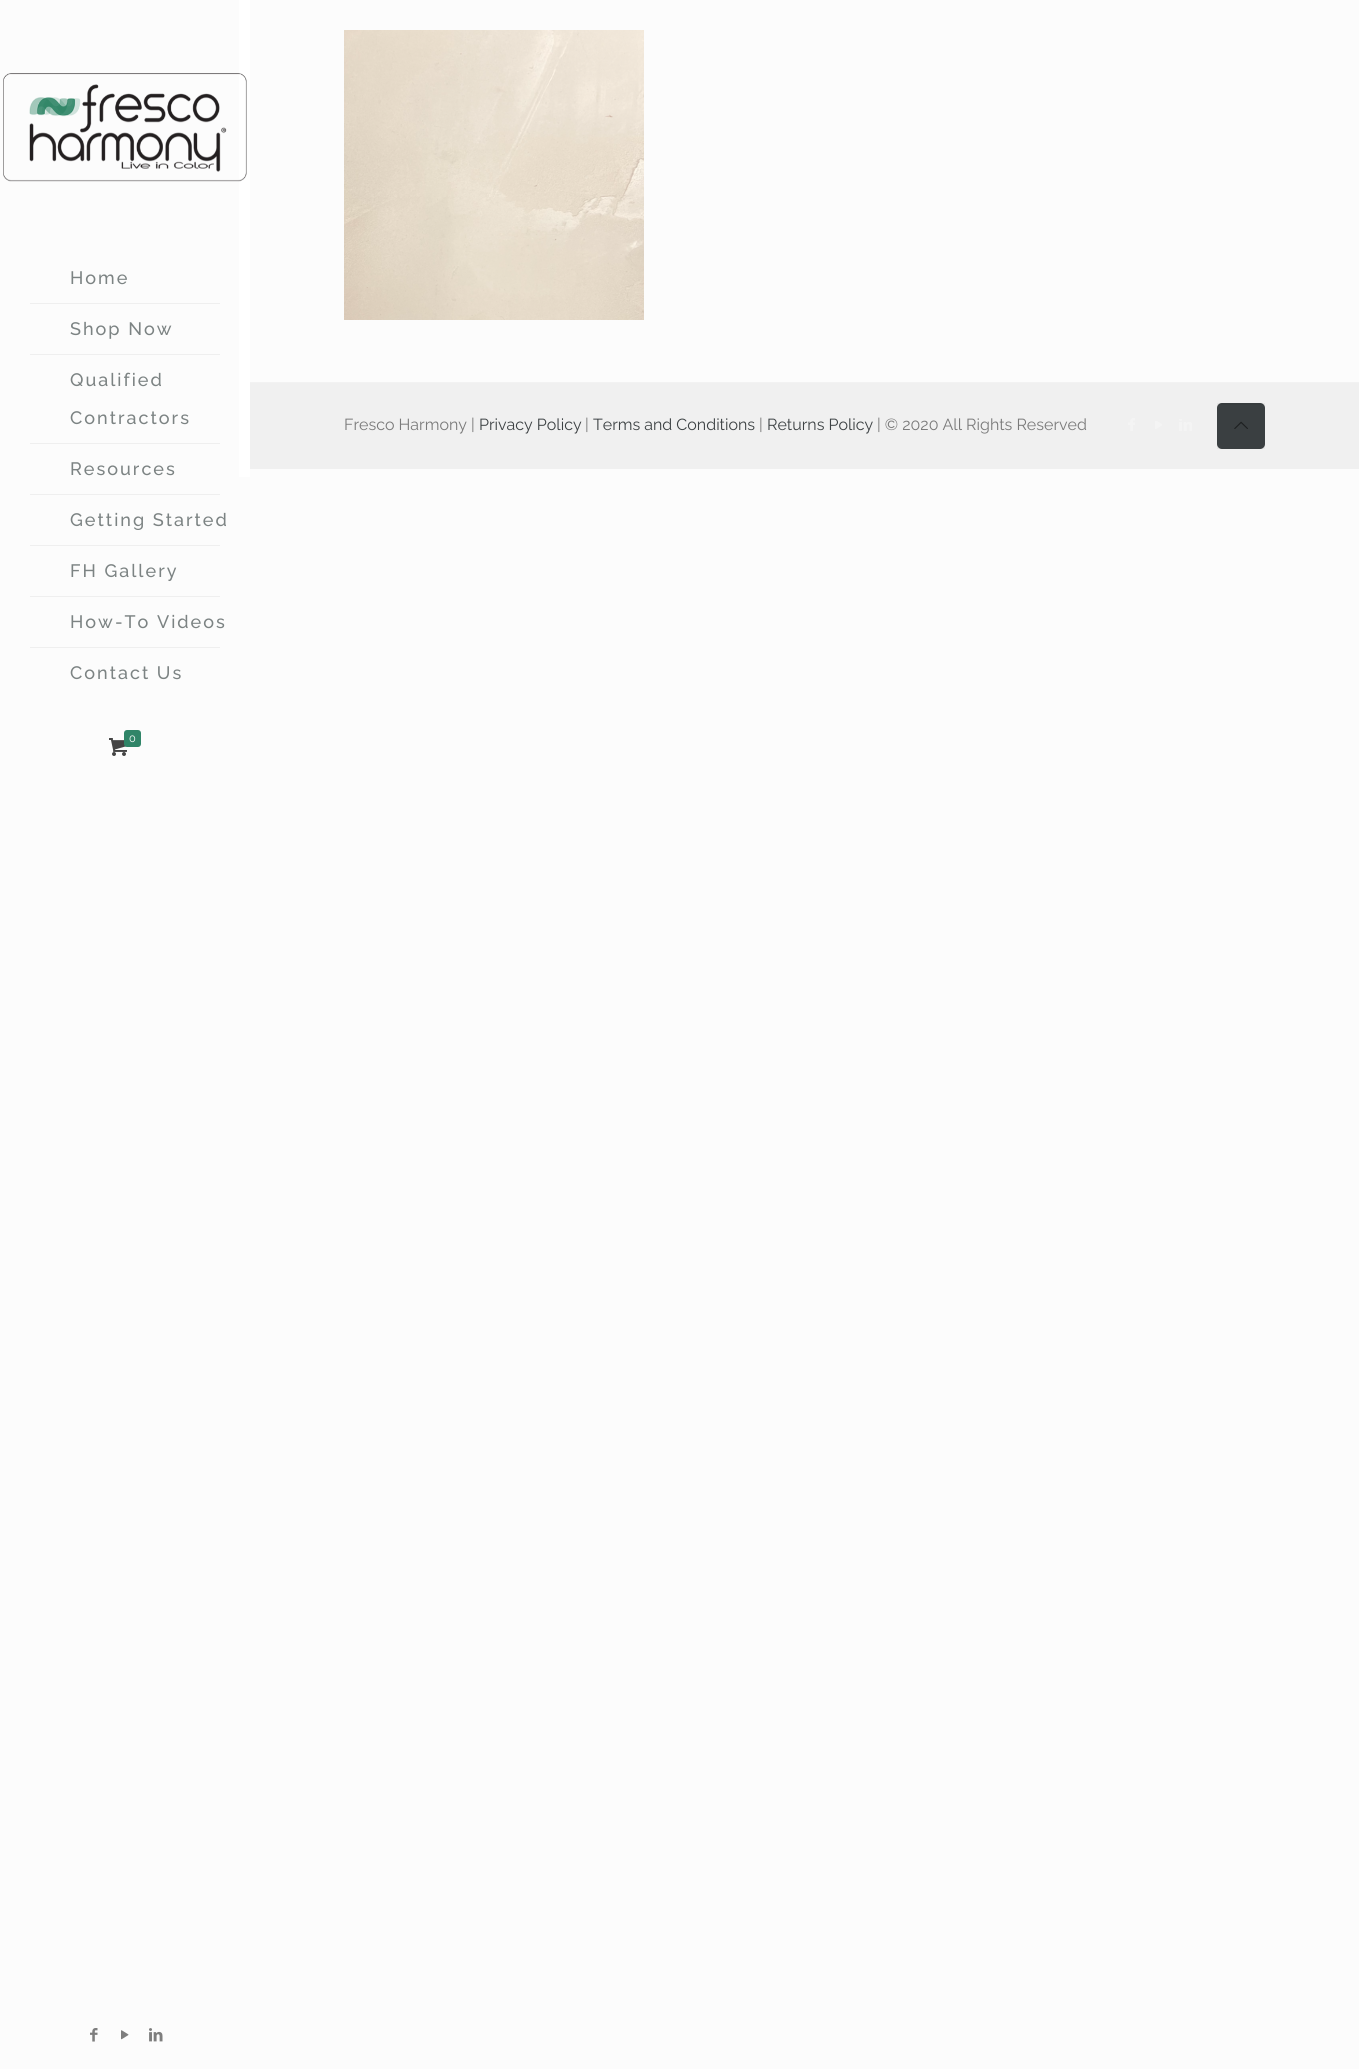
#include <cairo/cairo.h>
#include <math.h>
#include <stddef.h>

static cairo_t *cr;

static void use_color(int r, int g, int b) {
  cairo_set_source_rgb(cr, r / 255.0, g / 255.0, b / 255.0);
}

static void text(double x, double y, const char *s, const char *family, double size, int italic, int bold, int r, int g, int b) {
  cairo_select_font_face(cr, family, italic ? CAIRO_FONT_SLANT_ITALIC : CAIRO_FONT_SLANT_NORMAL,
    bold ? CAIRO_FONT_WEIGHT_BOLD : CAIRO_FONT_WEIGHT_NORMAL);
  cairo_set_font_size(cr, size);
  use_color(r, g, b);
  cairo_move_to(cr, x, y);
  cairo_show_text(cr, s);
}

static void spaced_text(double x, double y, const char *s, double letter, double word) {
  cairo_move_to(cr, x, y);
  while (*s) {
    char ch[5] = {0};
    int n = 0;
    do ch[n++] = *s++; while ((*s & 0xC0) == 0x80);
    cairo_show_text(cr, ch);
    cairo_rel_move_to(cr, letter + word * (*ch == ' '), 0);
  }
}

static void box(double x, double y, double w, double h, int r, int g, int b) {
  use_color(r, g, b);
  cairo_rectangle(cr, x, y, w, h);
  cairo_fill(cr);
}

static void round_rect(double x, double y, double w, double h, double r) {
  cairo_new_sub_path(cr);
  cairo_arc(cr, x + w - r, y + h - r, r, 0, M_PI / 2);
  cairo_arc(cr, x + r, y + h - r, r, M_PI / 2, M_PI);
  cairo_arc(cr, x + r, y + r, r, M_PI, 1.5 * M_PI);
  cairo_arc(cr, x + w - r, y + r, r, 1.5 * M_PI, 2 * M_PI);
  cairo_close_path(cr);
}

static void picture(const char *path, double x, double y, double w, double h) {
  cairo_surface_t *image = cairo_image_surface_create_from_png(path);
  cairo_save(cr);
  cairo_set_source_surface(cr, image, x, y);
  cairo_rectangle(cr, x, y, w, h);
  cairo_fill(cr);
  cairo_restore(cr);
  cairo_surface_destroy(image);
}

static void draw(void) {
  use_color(252, 252, 252);
  cairo_paint(cr);
  box(239, 0, 11, 477, 255, 255, 255);
  picture("img_01.png", 3, 73, 244, 109);
  box(30, 303, 190, 1, 239, 239, 239);
  box(30, 354, 190, 1, 239, 239, 239);
  box(30, 443, 190, 1, 239, 239, 239);
  box(30, 494, 190, 1, 239, 239, 239);
  box(30, 545, 190, 1, 239, 239, 239);
  box(30, 596, 190, 1, 239, 239, 239);
  box(30, 647, 190, 1, 239, 239, 239);
  picture("img_02.png", 109, 738, 18, 18);
  use_color(48, 133, 104);
  round_rect(124, 730, 17, 17, 3);
  cairo_fill(cr);
  picture("img_03.png", 90, 2028, 8, 14);
  picture("img_04.png", 121, 2030, 8, 10);
  picture("img_05.png", 149, 2028, 14, 14);
  picture("img_06.png", 344, 30, 300, 290);
  box(250, 383, 1109, 86, 240, 240, 240);
  box(250, 382, 1109, 1, 242, 242, 242);
  picture("img_07.png", 1128, 418, 7, 13);
  picture("img_08.png", 1155, 421, 7, 8);
  picture("img_09.png", 1179, 419, 13, 12);
  use_color(61, 66, 68);
  round_rect(1217, 403, 48, 46, 5);
  cairo_fill(cr);
  picture("img_10.png", 1218, 403, 46, 2);
  cairo_set_source_rgba(cr, 0, 0, 0, 0.05);
  cairo_rectangle(cr, 1217, 403, 48, 46);
  cairo_fill(cr);
  picture("img_11.png", 1234, 421, 14, 8);
  cairo_select_font_face(cr, "Raleway Medium", CAIRO_FONT_SLANT_NORMAL, CAIRO_FONT_WEIGHT_NORMAL);
  cairo_set_font_size(cr, 18);
  use_color(124, 131, 131);
  spaced_text(70, 284, "Home", 2, 0);
  spaced_text(70, 335, "Shop Now", 2, 0);
  spaced_text(70, 386, "Qualified", 2, 0);
  spaced_text(70, 424, "Contractors", 2, 0);
  spaced_text(70, 475, "Resources", 2, 0);
  spaced_text(70, 526, "Getting Started", 2, 0);
  spaced_text(70, 577, "FH Gallery", 2, 0);
  spaced_text(70, 628, "How-To Videos", 2, 0);
  spaced_text(70, 679, "Contact Us", 2, 0);
  text(129, 742, "0", "Raleway", 11, 0, 0, 255, 255, 255);
  text(344, 430, "Fresco Harmony |", "Raleway", 16, 0, 0, 122, 122, 122);
  text(479, 430, "Privacy Policy", "Raleway", 16, 0, 0, 61, 66, 68);
  text(585, 430, "|", "Raleway", 16, 0, 0, 122, 122, 122);
  text(593, 430, "Terms and Conditions", "Raleway", 16, 0, 0, 61, 66, 68);
  text(759, 430, "|", "Raleway", 16, 0, 0, 122, 122, 122);
  text(767, 430, "Returns Policy", "Raleway", 16, 0, 0, 61, 66, 68);
  text(877, 430, "| © 2020 All Rights Reserved", "Raleway", 16, 0, 0, 122, 122, 122);
}

int main(void) {
  cairo_surface_t *surface = cairo_image_surface_create(CAIRO_FORMAT_RGB24, 1359, 2069);
  cr = cairo_create(surface);
  cairo_font_options_t *options = cairo_font_options_create();
  cairo_font_options_set_hint_metrics(options, CAIRO_HINT_METRICS_OFF);
  cairo_font_options_set_hint_style(options, CAIRO_HINT_STYLE_NONE);
  cairo_set_font_options(cr, options);
  cairo_set_miter_limit(cr, 4);
  draw();
  cairo_surface_write_to_png(surface, "out.png");
  cairo_font_options_destroy(options);
  cairo_destroy(cr);
  cairo_surface_destroy(surface);
  return 0;
}
